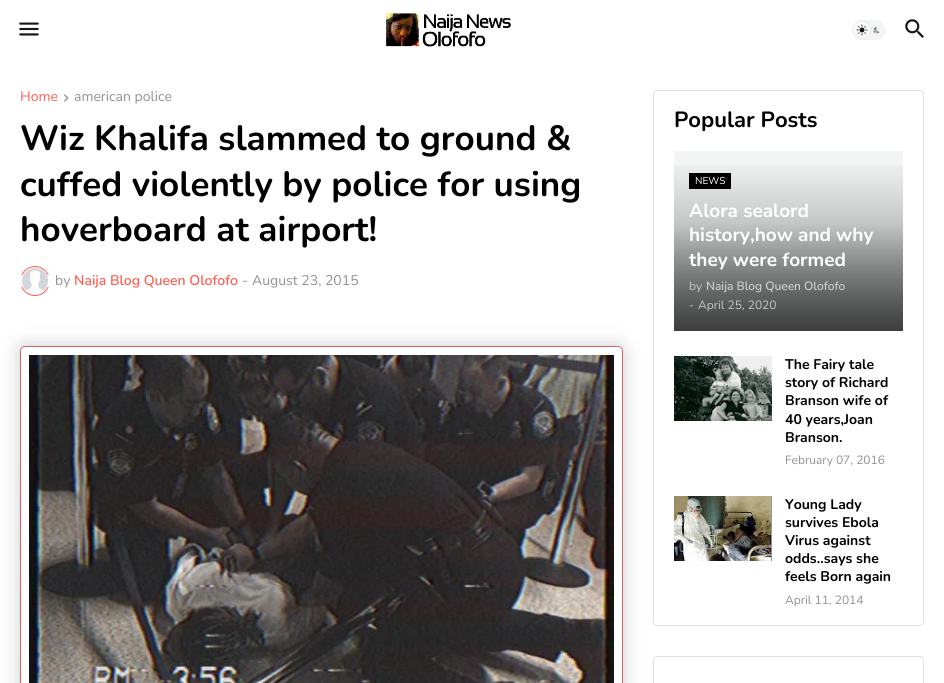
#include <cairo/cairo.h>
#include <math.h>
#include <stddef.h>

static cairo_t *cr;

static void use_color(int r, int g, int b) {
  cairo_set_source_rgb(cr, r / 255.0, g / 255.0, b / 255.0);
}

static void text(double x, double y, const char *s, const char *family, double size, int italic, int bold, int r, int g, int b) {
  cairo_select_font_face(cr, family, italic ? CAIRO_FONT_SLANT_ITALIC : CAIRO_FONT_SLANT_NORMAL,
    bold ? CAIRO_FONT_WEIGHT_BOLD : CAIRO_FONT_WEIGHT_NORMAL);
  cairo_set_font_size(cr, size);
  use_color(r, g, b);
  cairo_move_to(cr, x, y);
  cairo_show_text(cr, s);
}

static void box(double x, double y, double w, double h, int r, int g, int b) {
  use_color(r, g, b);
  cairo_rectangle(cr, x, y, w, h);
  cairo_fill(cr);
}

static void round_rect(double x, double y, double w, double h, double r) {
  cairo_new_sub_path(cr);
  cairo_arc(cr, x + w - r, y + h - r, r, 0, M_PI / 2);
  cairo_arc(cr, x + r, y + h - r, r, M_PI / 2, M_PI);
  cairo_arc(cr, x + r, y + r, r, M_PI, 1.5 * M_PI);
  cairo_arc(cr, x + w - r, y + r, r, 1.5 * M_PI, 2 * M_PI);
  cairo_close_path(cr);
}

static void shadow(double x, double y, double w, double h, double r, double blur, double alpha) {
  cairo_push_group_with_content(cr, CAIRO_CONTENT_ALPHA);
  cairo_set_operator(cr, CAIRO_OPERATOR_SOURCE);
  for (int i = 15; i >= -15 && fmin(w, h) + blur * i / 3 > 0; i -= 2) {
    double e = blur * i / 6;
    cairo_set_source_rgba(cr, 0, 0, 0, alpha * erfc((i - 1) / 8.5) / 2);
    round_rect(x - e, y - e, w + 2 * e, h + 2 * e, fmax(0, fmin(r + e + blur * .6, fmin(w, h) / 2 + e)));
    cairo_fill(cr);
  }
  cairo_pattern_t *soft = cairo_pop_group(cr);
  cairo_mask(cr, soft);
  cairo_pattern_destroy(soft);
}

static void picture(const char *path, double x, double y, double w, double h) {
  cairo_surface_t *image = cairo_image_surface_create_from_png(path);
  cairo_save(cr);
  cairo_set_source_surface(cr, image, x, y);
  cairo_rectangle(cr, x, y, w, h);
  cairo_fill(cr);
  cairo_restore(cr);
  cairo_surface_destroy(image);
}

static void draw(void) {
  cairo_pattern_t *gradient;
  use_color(255, 255, 255);
  cairo_paint(cr);
  picture("img_01.png", 19, 22, 20, 14);
  picture("img_02.png", 386, 13, 125, 34);
  use_color(243, 245, 245);
  round_rect(852, 20, 34, 20, 10);
  cairo_fill(cr);
  picture("img_04.png", 873, 26, 7, 8);
  use_color(0, 0, 0);
  shadow(854, 22, 16, 16, 8, 1, 0.1);
  use_color(255, 255, 255);
  cairo_arc(cr, 862, 30, 8, 0, 2 * M_PI);
  cairo_fill(cr);
  picture("img_03.png", 856, 24, 12, 12);
  picture("img_05.png", 905, 19, 19, 19);
  picture("img_06.png", 64, 94, 5, 8);
  cairo_arc(cr, 35, 281, 14.5, 0, 2 * M_PI);
  use_color(255, 94, 81);
  cairo_set_line_width(cr, 1);
  cairo_stroke(cr);
  box(20, 275, 30, 12, 255, 255, 255);
  picture("img_07.png", 22, 268, 26, 23);
  cairo_save(cr);
  cairo_set_fill_rule(cr, CAIRO_FILL_RULE_EVEN_ODD);
  cairo_new_path(cr);
  cairo_move_to(cr, 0, 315);
  cairo_line_to(cr, 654, 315);
  cairo_line_to(cr, 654, 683);
  cairo_line_to(cr, 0, 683);
  cairo_close_path(cr);
  cairo_move_to(cr, 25, 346);
  cairo_line_to(cr, 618, 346);
  cairo_curve_to(cr, 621, 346, 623, 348, 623, 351);
  cairo_line_to(cr, 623, 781);
  cairo_curve_to(cr, 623, 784, 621, 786, 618, 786);
  cairo_line_to(cr, 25, 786);
  cairo_curve_to(cr, 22, 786, 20, 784, 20, 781);
  cairo_line_to(cr, 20, 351);
  cairo_curve_to(cr, 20, 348, 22, 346, 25, 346);
  cairo_close_path(cr);
  cairo_clip(cr);
  use_color(0, 0, 0);
  shadow(20, 346, 603, 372, 5, 10, 0.2);
  cairo_restore(cr);
  round_rect(20.5, 346.5, 602, 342, 4.5);
  use_color(204, 102, 102);
  cairo_stroke(cr);
  picture("img_08.png", 29, 355, 585, 328);
  round_rect(653.5, 90.5, 270, 535, 3.5);
  use_color(226, 226, 226);
  cairo_stroke(cr);
  box(674, 151, 229, 36, 243, 245, 245);
  gradient = cairo_pattern_create_linear(789, 187, 789, 331);
  cairo_pattern_add_color_stop_rgba(gradient, 0.25, 0.953, 0.961, 0.961, 1);
  cairo_pattern_add_color_stop_rgba(gradient, 1, 0.478, 0.482, 0.482, 1);
  cairo_set_source(cr, gradient);
  cairo_pattern_destroy(gradient);
  cairo_rectangle(cr, 674, 187, 229, 144);
  cairo_fill(cr);
  gradient = cairo_pattern_create_linear(789, 158, 789, 331);
  cairo_pattern_add_color_stop_rgba(gradient, 0, 0, 0, 0, 0);
  cairo_pattern_add_color_stop_rgba(gradient, 1, 0, 0, 0, 0.5);
  cairo_set_source(cr, gradient);
  cairo_pattern_destroy(gradient);
  cairo_rectangle(cr, 674, 165, 229, 166);
  cairo_fill(cr);
  box(689, 173, 42, 16, 0, 0, 0);
  picture("img_09.png", 674, 356, 98, 65);
  picture("img_10.png", 674, 496, 98, 65);
  round_rect(653.5, 656.5, 270, 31, 3.5);
  use_color(226, 226, 226);
  cairo_stroke(cr);
  text(20, 101, "Home", "Nunito", 14, 0, 0, 255, 94, 81);
  text(74, 101, "american police", "Nunito", 14, 0, 0, 145, 145, 145);
  text(20, 150, "Wiz Khalifa slammed to ground &", "Nunito", 35, 0, 1, 0, 0, 0);
  text(20, 196, "cuffed violently by police for using", "Nunito", 35, 0, 1, 0, 0, 0);
  text(20, 241, "hoverboard at airport!", "Nunito", 35, 0, 1, 0, 0, 0);
  text(55, 285, "by", "Nunito", 14, 0, 0, 145, 145, 145);
  text(74, 285, "Naija Blog Queen Olofofo", "Nunito SemiBold", 14, 0, 0, 255, 94, 81);
  text(242, 285, "-", "Nunito", 14, 0, 0, 145, 145, 145);
  text(252, 285, "August 23, 2015", "Nunito", 14, 0, 0, 145, 145, 145);
  text(674, 127, "Popular Posts", "Nunito", 22, 0, 1, 0, 0, 0);
  text(695, 184, "NEWS", "Nunito", 10, 0, 0, 255, 255, 255);
  text(689, 217, "Alora sealord", "Nunito", 19, 0, 1, 255, 255, 255);
  text(689, 241, "history,how and why", "Nunito", 19, 0, 1, 255, 255, 255);
  text(689, 266, "they were formed", "Nunito", 19, 0, 1, 255, 255, 255);
  text(689, 290, "by", "Nunito", 12, 0, 0, 197, 197, 202);
  text(706, 290, "Naija Blog Queen Olofofo", "Nunito Medium", 12, 0, 0, 213, 213, 218);
  text(689, 309, "-", "Nunito", 12, 0, 0, 197, 197, 202);
  text(698, 309, "April 25, 2020", "Nunito", 12, 0, 0, 197, 197, 202);
  text(785, 369, "The Fairy tale", "Nunito", 14, 0, 1, 0, 0, 0);
  text(785, 387, "story of Richard", "Nunito", 14, 0, 1, 0, 0, 0);
  text(785, 405, "Branson wife of", "Nunito", 14, 0, 1, 0, 0, 0);
  text(785, 424, "40 years,Joan", "Nunito", 14, 0, 1, 0, 0, 0);
  text(785, 442, "Branson.", "Nunito", 14, 0, 1, 0, 0, 0);
  text(785, 464, "February 07, 2016", "Nunito", 12, 0, 0, 145, 145, 145);
  text(785, 509, "Young Lady", "Nunito", 14, 0, 1, 0, 0, 0);
  text(785, 527, "survives Ebola", "Nunito", 14, 0, 1, 0, 0, 0);
  text(785, 545, "Virus against", "Nunito", 14, 0, 1, 0, 0, 0);
  text(785, 563, "odds..says she", "Nunito", 14, 0, 1, 0, 0, 0);
  text(785, 581, "feels Born again", "Nunito", 14, 0, 1, 0, 0, 0);
  text(785, 604, "April 11, 2014", "Nunito", 12, 0, 0, 145, 145, 145);
}

int main(void) {
  cairo_surface_t *surface = cairo_image_surface_create(CAIRO_FORMAT_RGB24, 944, 683);
  cr = cairo_create(surface);
  cairo_font_options_t *options = cairo_font_options_create();
  cairo_font_options_set_hint_metrics(options, CAIRO_HINT_METRICS_OFF);
  cairo_font_options_set_hint_style(options, CAIRO_HINT_STYLE_NONE);
  cairo_set_font_options(cr, options);
  cairo_set_miter_limit(cr, 4);
  draw();
  cairo_surface_write_to_png(surface, "out.png");
  cairo_font_options_destroy(options);
  cairo_destroy(cr);
  cairo_surface_destroy(surface);
  return 0;
}
